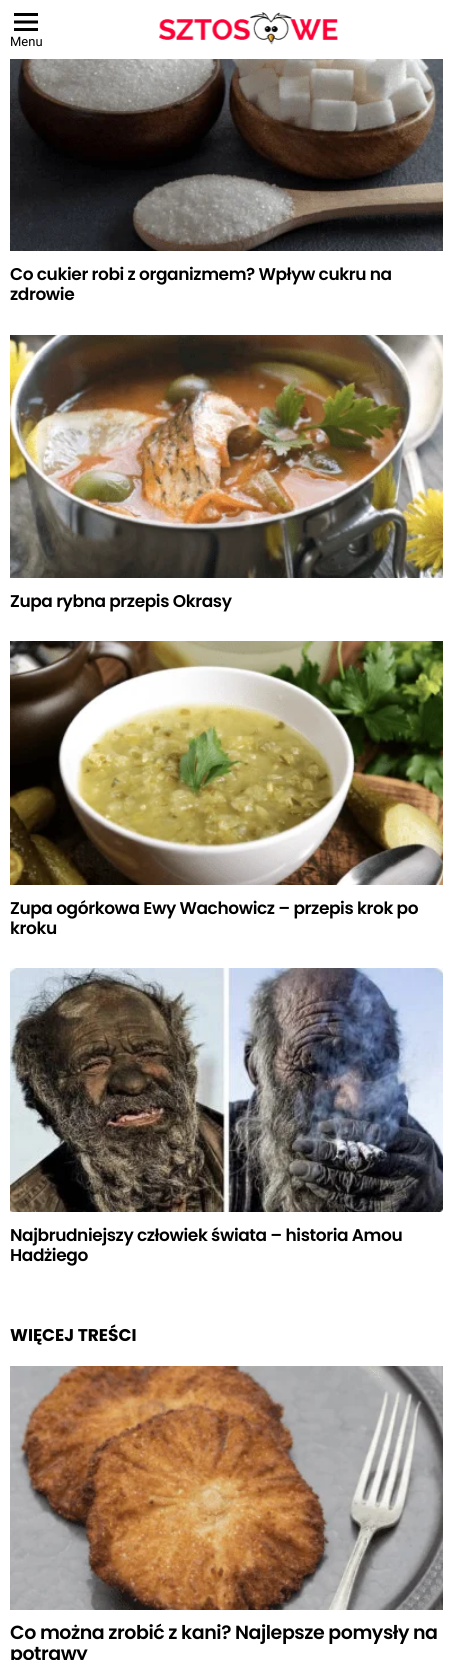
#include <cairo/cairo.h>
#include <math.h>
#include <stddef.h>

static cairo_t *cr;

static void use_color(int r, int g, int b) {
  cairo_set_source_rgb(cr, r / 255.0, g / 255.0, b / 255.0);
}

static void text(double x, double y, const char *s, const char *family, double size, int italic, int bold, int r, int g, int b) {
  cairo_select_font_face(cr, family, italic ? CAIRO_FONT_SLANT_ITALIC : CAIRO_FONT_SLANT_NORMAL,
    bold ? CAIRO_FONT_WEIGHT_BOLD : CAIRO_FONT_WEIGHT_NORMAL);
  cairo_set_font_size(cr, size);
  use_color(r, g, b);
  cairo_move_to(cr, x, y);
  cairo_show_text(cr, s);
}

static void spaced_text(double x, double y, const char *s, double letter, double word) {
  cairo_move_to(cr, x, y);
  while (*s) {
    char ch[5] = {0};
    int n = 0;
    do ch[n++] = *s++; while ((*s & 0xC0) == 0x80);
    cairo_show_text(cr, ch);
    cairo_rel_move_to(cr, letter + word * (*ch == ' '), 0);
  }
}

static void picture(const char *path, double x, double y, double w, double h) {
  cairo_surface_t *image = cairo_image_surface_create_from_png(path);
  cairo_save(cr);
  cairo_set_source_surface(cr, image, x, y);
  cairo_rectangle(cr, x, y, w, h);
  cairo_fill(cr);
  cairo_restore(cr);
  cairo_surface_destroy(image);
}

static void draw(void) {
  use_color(255, 255, 255);
  cairo_paint(cr);
  picture("img_01.png", 14, 13, 24, 18);
  picture("img_02.png", 158, 12, 180, 33);
  picture("img_03.png", 10, 59, 433, 192);
  picture("img_04.png", 10, 335, 433, 243);
  picture("img_05.png", 10, 641, 433, 244);
  picture("img_06.png", 10, 968, 433, 244);
  picture("img_07.png", 10, 1366, 433, 244);
  text(10, 46, "Menu", "Roboto", 13, 0, 0, 0, 0, 0);
  cairo_select_font_face(cr, "Poppins SemiBold", CAIRO_FONT_SLANT_NORMAL, CAIRO_FONT_WEIGHT_NORMAL);
  cairo_set_font_size(cr, 17);
  spaced_text(10, 280, "Co cukier robi z organizmem? Wpływ cukru na", -0.4, 0);
  spaced_text(10, 300, "zdrowie", -0.4, 0);
  spaced_text(10, 607, "Zupa rybna przepis Okrasy", -0.4, 0);
  spaced_text(10, 914, "Zupa ogórkowa Ewy Wachowicz – przepis krok po", -0.4, 0);
  spaced_text(10, 934, "kroku", -0.4, 0);
  spaced_text(10, 1241, "Najbrudniejszy człowiek świata – historia Amou", -0.4, 0);
  spaced_text(10, 1261, "Hadżiego", -0.4, 0);
  text(10, 1341, "WIĘCEJ TREŚCI", "Poppins", 17, 0, 1, 0, 0, 0);
  cairo_select_font_face(cr, "Poppins SemiBold", CAIRO_FONT_SLANT_NORMAL, CAIRO_FONT_WEIGHT_NORMAL);
  cairo_set_font_size(cr, 19);
  spaced_text(10, 1639, "Co można zrobić z kani? Najlepsze pomysły na", -0.45, 0);
  spaced_text(10, 1660, "potrawy", -0.45, 0);
}

int main(void) {
  cairo_surface_t *surface = cairo_image_surface_create(CAIRO_FORMAT_RGB24, 453, 1660);
  cr = cairo_create(surface);
  cairo_font_options_t *options = cairo_font_options_create();
  cairo_font_options_set_hint_metrics(options, CAIRO_HINT_METRICS_OFF);
  cairo_font_options_set_hint_style(options, CAIRO_HINT_STYLE_NONE);
  cairo_set_font_options(cr, options);
  cairo_set_miter_limit(cr, 4);
  draw();
  cairo_surface_write_to_png(surface, "out.png");
  cairo_font_options_destroy(options);
  cairo_destroy(cr);
  cairo_surface_destroy(surface);
  return 0;
}
